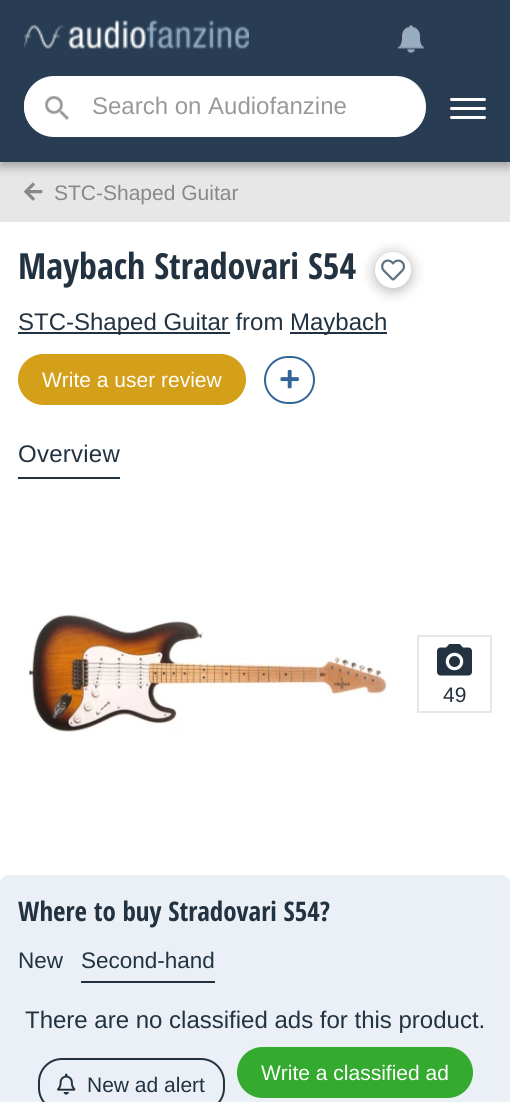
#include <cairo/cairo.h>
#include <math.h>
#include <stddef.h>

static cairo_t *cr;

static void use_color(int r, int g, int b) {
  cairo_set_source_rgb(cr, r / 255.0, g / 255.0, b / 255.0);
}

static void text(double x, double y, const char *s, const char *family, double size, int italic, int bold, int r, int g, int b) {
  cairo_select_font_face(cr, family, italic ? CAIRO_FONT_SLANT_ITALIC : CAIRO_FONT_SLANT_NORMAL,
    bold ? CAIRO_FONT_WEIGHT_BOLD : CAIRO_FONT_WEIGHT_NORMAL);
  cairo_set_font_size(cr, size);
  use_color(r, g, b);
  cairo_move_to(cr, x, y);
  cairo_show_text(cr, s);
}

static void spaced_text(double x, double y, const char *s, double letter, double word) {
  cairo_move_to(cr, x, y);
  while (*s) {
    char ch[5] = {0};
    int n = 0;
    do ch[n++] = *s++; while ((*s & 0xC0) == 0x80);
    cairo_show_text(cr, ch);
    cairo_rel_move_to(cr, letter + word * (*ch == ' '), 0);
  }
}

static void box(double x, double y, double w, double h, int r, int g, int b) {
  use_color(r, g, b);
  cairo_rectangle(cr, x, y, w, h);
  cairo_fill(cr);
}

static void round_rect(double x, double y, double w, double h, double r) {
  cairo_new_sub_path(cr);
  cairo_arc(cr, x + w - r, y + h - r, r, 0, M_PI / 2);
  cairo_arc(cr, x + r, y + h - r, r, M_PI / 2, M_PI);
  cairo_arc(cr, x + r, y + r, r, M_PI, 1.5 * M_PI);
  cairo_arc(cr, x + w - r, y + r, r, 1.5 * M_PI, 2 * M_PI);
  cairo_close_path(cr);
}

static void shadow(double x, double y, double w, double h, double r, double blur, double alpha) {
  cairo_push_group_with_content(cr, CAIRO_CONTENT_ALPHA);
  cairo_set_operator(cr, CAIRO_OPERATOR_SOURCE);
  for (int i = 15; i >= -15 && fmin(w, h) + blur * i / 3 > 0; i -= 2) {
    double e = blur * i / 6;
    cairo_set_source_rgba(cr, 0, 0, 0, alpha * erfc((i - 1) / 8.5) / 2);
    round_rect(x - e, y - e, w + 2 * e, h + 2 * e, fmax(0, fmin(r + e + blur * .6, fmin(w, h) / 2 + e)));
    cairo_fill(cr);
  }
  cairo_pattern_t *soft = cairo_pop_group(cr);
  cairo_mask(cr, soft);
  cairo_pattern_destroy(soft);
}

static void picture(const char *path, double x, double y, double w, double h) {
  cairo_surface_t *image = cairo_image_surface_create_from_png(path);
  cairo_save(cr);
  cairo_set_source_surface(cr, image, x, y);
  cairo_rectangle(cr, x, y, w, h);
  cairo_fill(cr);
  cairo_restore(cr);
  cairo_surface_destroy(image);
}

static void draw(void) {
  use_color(255, 255, 255);
  cairo_paint(cr);
  box(0, 162, 510, 60, 231, 231, 231);
  picture("img_04.png", 24, 182, 19, 19);
  use_color(0, 0, 0);
  shadow(0, 5, 510, 162, 0, 5, 0.3);
  box(0, 0, 510, 162, 40, 61, 83);
  picture("img_01.png", 24, 20, 225, 29);
  picture("img_02.png", 397, 25, 28, 28);
  use_color(255, 255, 255);
  round_rect(24, 77, 402, 60, 30);
  cairo_fill(cr);
  cairo_set_fill_rule(cr, CAIRO_FILL_RULE_EVEN_ODD);
  cairo_new_path(cr);
  cairo_move_to(cr, 54, 76);
  cairo_line_to(cr, 396, 76);
  cairo_curve_to(cr, 413, 76, 426, 90, 426, 106);
  cairo_curve_to(cr, 426, 123, 413, 136, 396, 136);
  cairo_line_to(cr, 54, 136);
  cairo_curve_to(cr, 37, 136, 24, 123, 24, 106);
  cairo_curve_to(cr, 24, 90, 37, 76, 54, 76);
  cairo_close_path(cr);
  cairo_move_to(cr, 54, 78);
  cairo_line_to(cr, 396, 78);
  cairo_curve_to(cr, 413, 78, 426, 91, 426, 106);
  cairo_curve_to(cr, 426, 122, 413, 135, 396, 135);
  cairo_line_to(cr, 54, 135);
  cairo_curve_to(cr, 38, 135, 26, 122, 26, 106);
  cairo_curve_to(cr, 26, 91, 38, 78, 54, 78);
  cairo_close_path(cr);
  cairo_fill(cr);
  picture("img_03.png", 45, 96, 24, 24);
  round_rect(450, 116, 36, 3, 1.5);
  cairo_fill(cr);
  round_rect(450, 98, 36, 3, 1.5);
  cairo_fill(cr);
  round_rect(450, 107, 36, 3, 1.5);
  cairo_fill(cr);
  use_color(0, 0, 0);
  shadow(375, 254, 36, 36, 18, 7, 0.3);
  use_color(255, 255, 255);
  cairo_arc(cr, 393, 270, 18, 0, 2 * M_PI);
  cairo_fill(cr);
  picture("img_05.png", 381, 259, 24, 22);
  box(18, 332, 212, 2, 34, 50, 64);
  box(290, 332, 97, 2, 34, 50, 64);
  use_color(212, 159, 25);
  round_rect(18, 354, 228, 51, 25.5);
  cairo_fill(cr);
  round_rect(265, 357, 49, 46, 23);
  use_color(51, 102, 151);
  cairo_stroke(cr);
  picture("img_06.png", 280, 369, 19, 20);
  box(18, 477, 102, 2, 34, 50, 64);
  picture("img_07.png", 28, 613, 359, 119);
  cairo_rectangle(cr, 418, 636, 73, 76);
  use_color(231, 231, 231);
  cairo_stroke(cr);
  picture("img_08.png", 437, 644, 35, 32);
  use_color(234, 240, 245);
  round_rect(0, 875, 510, 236, 9);
  cairo_fill(cr);
  box(81, 981, 134, 2, 34, 50, 64);
  use_color(52, 171, 46);
  round_rect(237, 1047, 236, 51, 25.5);
  cairo_fill(cr);
  round_rect(39, 1059, 185, 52, 23);
  use_color(34, 50, 64);
  cairo_stroke(cr);
  picture("img_09.png", 57, 1073, 19, 22);
  text(92, 114, "Search on Audiofanzine", "Liberation Sans", 24, 0, 0, 153, 153, 153);
  text(54, 200, "STC-Shaped Guitar", "Liberation Sans", 21, 0, 0, 136, 136, 136);
  text(18, 279, "Maybach Stradovari S54", "Open Sans Condensed", 36, 0, 1, 34, 50, 64);
  text(18, 330, "STC-Shaped Guitar from", "Liberation Sans", 24, 0, 0, 34, 50, 64);
  text(290, 330, "Maybach", "Liberation Sans", 24, 0, 0, 34, 50, 64);
  text(42, 387, "Write a user review", "Liberation Sans", 21, 0, 0, 255, 255, 255);
  cairo_set_font_size(cr, 24);
  use_color(34, 50, 64);
  spaced_text(18, 462, "Overview", 0.25, 0);
  text(443, 702, "49", "Liberation Sans", 21, 0, 0, 34, 50, 64);
  text(18, 921, "Where to buy Stradovari S54?", "Open Sans Condensed", 27, 0, 1, 34, 50, 64);
  text(18, 968, "New", "Liberation Sans", 22.5, 0, 0, 34, 50, 64);
  text(81, 968, "Second-hand", "Liberation Sans", 22.5, 0, 0, 34, 50, 64);
  text(25, 1028, "There are no classified ads for this product.", "Liberation Sans", 24, 0, 0, 34, 50, 64);
  text(261, 1080, "Write a classified ad", "Liberation Sans", 21, 0, 0, 255, 255, 255);
  text(87, 1092, "New ad alert", "Liberation Sans", 21, 0, 0, 34, 50, 64);
}

int main(void) {
  cairo_surface_t *surface = cairo_image_surface_create(CAIRO_FORMAT_RGB24, 510, 1102);
  cr = cairo_create(surface);
  cairo_font_options_t *options = cairo_font_options_create();
  cairo_font_options_set_hint_metrics(options, CAIRO_HINT_METRICS_OFF);
  cairo_font_options_set_hint_style(options, CAIRO_HINT_STYLE_NONE);
  cairo_set_font_options(cr, options);
  cairo_set_miter_limit(cr, 4);
  draw();
  cairo_surface_write_to_png(surface, "out.png");
  cairo_font_options_destroy(options);
  cairo_destroy(cr);
  cairo_surface_destroy(surface);
  return 0;
}
